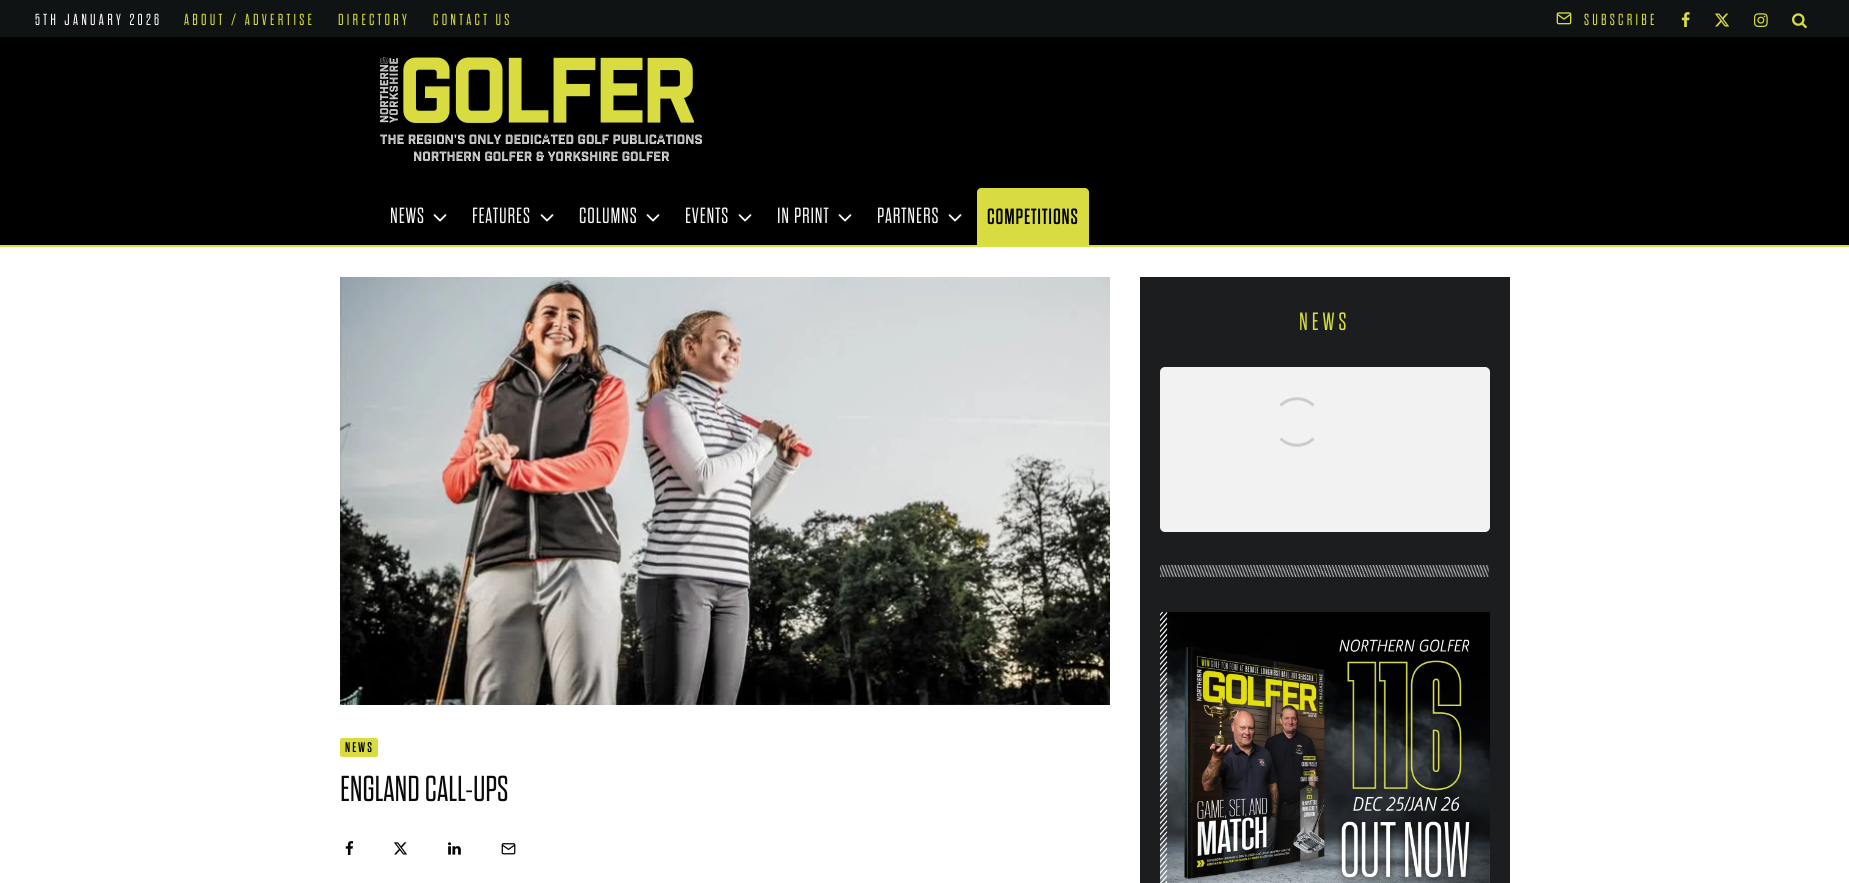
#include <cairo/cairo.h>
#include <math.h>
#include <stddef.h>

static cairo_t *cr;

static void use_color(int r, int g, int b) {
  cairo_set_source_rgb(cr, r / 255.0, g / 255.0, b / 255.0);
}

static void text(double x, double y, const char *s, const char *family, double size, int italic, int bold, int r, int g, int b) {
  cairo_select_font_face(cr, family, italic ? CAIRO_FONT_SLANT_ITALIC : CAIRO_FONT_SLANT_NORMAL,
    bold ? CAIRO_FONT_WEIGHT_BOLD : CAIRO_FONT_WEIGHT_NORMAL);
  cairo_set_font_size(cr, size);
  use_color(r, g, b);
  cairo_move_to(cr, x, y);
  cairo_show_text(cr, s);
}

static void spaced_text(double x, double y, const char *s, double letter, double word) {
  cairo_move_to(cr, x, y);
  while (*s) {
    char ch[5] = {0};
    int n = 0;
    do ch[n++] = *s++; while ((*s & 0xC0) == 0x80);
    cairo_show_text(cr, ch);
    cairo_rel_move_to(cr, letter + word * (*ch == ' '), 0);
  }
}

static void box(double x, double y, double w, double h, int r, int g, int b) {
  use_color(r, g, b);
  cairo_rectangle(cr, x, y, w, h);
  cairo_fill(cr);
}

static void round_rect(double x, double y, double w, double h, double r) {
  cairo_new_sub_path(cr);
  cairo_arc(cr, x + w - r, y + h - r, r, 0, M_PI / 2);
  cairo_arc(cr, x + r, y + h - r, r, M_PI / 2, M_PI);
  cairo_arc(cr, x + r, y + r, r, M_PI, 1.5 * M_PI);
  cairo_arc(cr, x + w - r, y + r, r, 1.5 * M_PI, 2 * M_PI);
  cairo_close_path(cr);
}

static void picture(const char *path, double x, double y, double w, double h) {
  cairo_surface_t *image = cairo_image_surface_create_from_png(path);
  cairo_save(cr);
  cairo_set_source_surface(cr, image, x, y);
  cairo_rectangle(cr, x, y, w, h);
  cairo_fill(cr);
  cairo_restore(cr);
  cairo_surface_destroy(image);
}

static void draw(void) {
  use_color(255, 255, 255);
  cairo_paint(cr);
  box(0, 0, 1849, 37, 16, 19, 20);
  picture("img_01.png", 1556, 12, 16, 13);
  picture("img_02.png", 1681, 12, 9, 15);
  picture("img_03.png", 1715, 13, 15, 14);
  picture("img_04.png", 1754, 13, 14, 14);
  picture("img_05.png", 1792, 13, 15, 16);
  box(0, 37, 1849, 208, 0, 0, 0);
  picture("img_06.png", 380, 57, 314, 66);
  box(0, 245, 1849, 2, 213, 226, 70);
  picture("img_07.png", 433, 214, 14, 8);
  picture("img_07.png", 540, 214, 14, 8);
  picture("img_07.png", 646, 214, 14, 8);
  picture("img_07.png", 738, 214, 14, 8);
  picture("img_07.png", 838, 214, 14, 8);
  picture("img_07.png", 948, 214, 14, 8);
  use_color(216, 220, 64);
  cairo_new_path(cr);
  cairo_move_to(cr, 981, 188);
  cairo_line_to(cr, 1085, 188);
  cairo_curve_to(cr, 1087, 188, 1089, 190, 1089, 192);
  cairo_line_to(cr, 1089, 245);
  cairo_line_to(cr, 977, 245);
  cairo_line_to(cr, 977, 192);
  cairo_curve_to(cr, 977, 190, 979, 188, 981, 188);
  cairo_close_path(cr);
  cairo_fill(cr);
  box(1140, 277, 370, 606, 28, 29, 30);
  use_color(242, 242, 242);
  round_rect(1160, 367, 330, 165, 5);
  cairo_fill(cr);
  cairo_new_path(cr);
  cairo_move_to(cr, 1280.5, 405.5);
  cairo_curve_to(cr, 1289.5, 396.5, 1304.5, 396.5, 1313.5, 405.5);
  cairo_move_to(cr, 1313.5, 438.5);
  cairo_curve_to(cr, 1304.5, 447.5, 1289.5, 447.5, 1280.5, 438.5);
  use_color(204, 204, 204);
  cairo_set_line_width(cr, 3);
  cairo_stroke(cr);
  picture("img_08.png", 1160, 565, 329, 12);
  picture("img_09.png", 1160, 612, 330, 271);
  picture("img_10.png", 340, 277, 770, 428);
  use_color(216, 220, 64);
  round_rect(340, 738, 38, 19, 2);
  cairo_fill(cr);
  picture("img_11.png", 345, 841, 9, 14);
  picture("img_12.png", 393, 842, 15, 13);
  picture("img_13.png", 448, 842, 13, 13);
  picture("img_14.png", 501, 843, 15, 12);
  cairo_select_font_face(cr, "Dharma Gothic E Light", CAIRO_FONT_SLANT_NORMAL, CAIRO_FONT_WEIGHT_NORMAL);
  cairo_set_font_size(cr, 16);
  use_color(255, 255, 255);
  spaced_text(35, 25, "5TH JANUARY 2026", 3.25, 0);
  use_color(216, 220, 64);
  spaced_text(184, 25, "ABOUT / ADVERTISE", 3.25, 0);
  spaced_text(338, 25, "DIRECTORY", 3.25, 0);
  spaced_text(433, 25, "CONTACT US", 3.25, 0);
  spaced_text(1584, 25, "SUBSCRIBE", 3.25, 0);
  text(380, 144, "THE REGION'S ONLY DEDICATED GOLF PUBLICATIONS", "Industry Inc", 13, 0, 1, 255, 255, 255);
  text(413, 161, "NORTHERN GOLFER & YORKSHIRE GOLFER", "Industry Inc", 13, 0, 1, 255, 255, 255);
  cairo_select_font_face(cr, "Dharma Gothic E Light", CAIRO_FONT_SLANT_NORMAL, CAIRO_FONT_WEIGHT_NORMAL);
  cairo_set_font_size(cr, 22);
  use_color(247, 247, 247);
  spaced_text(390, 223, "NEWS", 0.9, 0);
  spaced_text(472, 223, "FEATURES", 0.9, 0);
  spaced_text(579, 223, "COLUMNS", 0.9, 0);
  spaced_text(685, 223, "EVENTS", 0.9, 0);
  spaced_text(777, 223, "IN PRINT", 0.9, 0);
  spaced_text(877, 223, "PARTNERS", 0.9, 0);
  cairo_select_font_face(cr, "Dharma Gothic E", CAIRO_FONT_SLANT_NORMAL, CAIRO_FONT_WEIGHT_NORMAL);
  use_color(0, 0, 0);
  spaced_text(987, 224, "COMPETITIONS", 0.9, 0);
  cairo_select_font_face(cr, "Dharma Gothic E Light", CAIRO_FONT_SLANT_NORMAL, CAIRO_FONT_WEIGHT_NORMAL);
  cairo_set_font_size(cr, 25);
  use_color(216, 220, 64);
  spaced_text(1299, 330, "NEWS", 4, 0);
  cairo_select_font_face(cr, "Dharma Gothic E", CAIRO_FONT_SLANT_NORMAL, CAIRO_FONT_WEIGHT_NORMAL);
  cairo_set_font_size(cr, 14);
  use_color(0, 0, 0);
  spaced_text(345, 752, "NEWS", 2, 0);
  text(340, 801, "ENGLAND CALL-UPS", "Dharma Gothic E Light", 36, 0, 0, 10, 10, 10);
}

int main(void) {
  cairo_surface_t *surface = cairo_image_surface_create(CAIRO_FORMAT_RGB24, 1849, 883);
  cr = cairo_create(surface);
  cairo_font_options_t *options = cairo_font_options_create();
  cairo_font_options_set_hint_metrics(options, CAIRO_HINT_METRICS_OFF);
  cairo_font_options_set_hint_style(options, CAIRO_HINT_STYLE_NONE);
  cairo_set_font_options(cr, options);
  cairo_set_miter_limit(cr, 4);
  draw();
  cairo_surface_write_to_png(surface, "out.png");
  cairo_font_options_destroy(options);
  cairo_destroy(cr);
  cairo_surface_destroy(surface);
  return 0;
}
